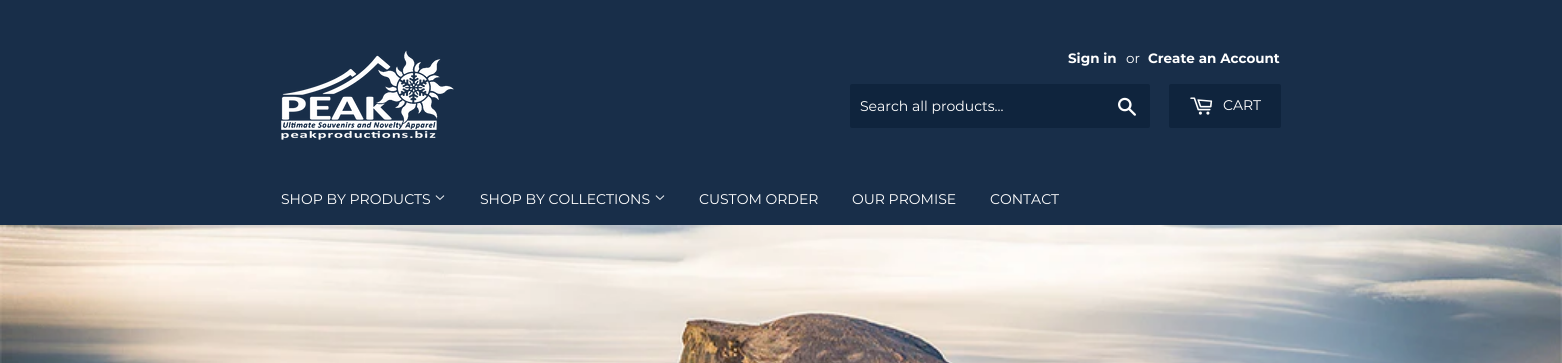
#include <cairo/cairo.h>
#include <math.h>
#include <stddef.h>

static cairo_t *cr;

static void use_color(int r, int g, int b) {
  cairo_set_source_rgb(cr, r / 255.0, g / 255.0, b / 255.0);
}

static void text(double x, double y, const char *s, const char *family, double size, int italic, int bold, int r, int g, int b) {
  cairo_select_font_face(cr, family, italic ? CAIRO_FONT_SLANT_ITALIC : CAIRO_FONT_SLANT_NORMAL,
    bold ? CAIRO_FONT_WEIGHT_BOLD : CAIRO_FONT_WEIGHT_NORMAL);
  cairo_set_font_size(cr, size);
  use_color(r, g, b);
  cairo_move_to(cr, x, y);
  cairo_show_text(cr, s);
}

static void round_rect(double x, double y, double w, double h, double r) {
  cairo_new_sub_path(cr);
  cairo_arc(cr, x + w - r, y + h - r, r, 0, M_PI / 2);
  cairo_arc(cr, x + r, y + h - r, r, M_PI / 2, M_PI);
  cairo_arc(cr, x + r, y + r, r, M_PI, 1.5 * M_PI);
  cairo_arc(cr, x + w - r, y + r, r, 1.5 * M_PI, 2 * M_PI);
  cairo_close_path(cr);
}

static void picture(const char *path, double x, double y, double w, double h) {
  cairo_surface_t *image = cairo_image_surface_create_from_png(path);
  cairo_save(cr);
  cairo_set_source_surface(cr, image, x, y);
  cairo_rectangle(cr, x, y, w, h);
  cairo_fill(cr);
  cairo_restore(cr);
  cairo_surface_destroy(image);
}

static void draw(void) {
  use_color(24, 46, 73);
  cairo_paint(cr);
  picture("img_01.png", 281, 50, 173, 90);
  use_color(15, 36, 61);
  round_rect(850, 84, 300, 44, 2);
  cairo_fill(cr);
  picture("img_02.png", 1118, 97, 18, 19);
  round_rect(1169, 84, 112, 44, 2);
  cairo_fill(cr);
  picture("img_03.png", 1190, 97, 23, 18);
  picture("img_04.png", 435, 195, 10, 5);
  picture("img_04.png", 655, 195, 10, 5);
  picture("img_05.png", 0, 225, 1562, 138);
  text(1068, 63, "Sign in", "Montserrat", 13.5, 0, 1, 255, 255, 255);
  text(1126, 63, "or", "Montserrat", 13.5, 0, 0, 255, 255, 255);
  text(1148, 63, "Create an Account", "Montserrat", 13.5, 0, 1, 255, 255, 255);
  text(860, 111, "Search all products...", "Montserrat", 14, 0, 0, 255, 255, 255);
  text(1223, 110, "CART", "Montserrat", 14, 0, 0, 255, 255, 255);
  text(281, 204, "SHOP BY PRODUCTS", "Montserrat", 14, 0, 0, 255, 255, 255);
  text(480, 204, "SHOP BY COLLECTIONS", "Montserrat", 14, 0, 0, 255, 255, 255);
  text(699, 204, "CUSTOM ORDER", "Montserrat", 14, 0, 0, 255, 255, 255);
  text(852, 204, "OUR PROMISE", "Montserrat", 14, 0, 0, 255, 255, 255);
  text(990, 204, "CONTACT", "Montserrat", 14, 0, 0, 255, 255, 255);
}

int main(void) {
  cairo_surface_t *surface = cairo_image_surface_create(CAIRO_FORMAT_RGB24, 1562, 363);
  cr = cairo_create(surface);
  cairo_font_options_t *options = cairo_font_options_create();
  cairo_font_options_set_hint_metrics(options, CAIRO_HINT_METRICS_OFF);
  cairo_font_options_set_hint_style(options, CAIRO_HINT_STYLE_NONE);
  cairo_set_font_options(cr, options);
  cairo_set_miter_limit(cr, 4);
  draw();
  cairo_surface_write_to_png(surface, "out.png");
  cairo_font_options_destroy(options);
  cairo_destroy(cr);
  cairo_surface_destroy(surface);
  return 0;
}
